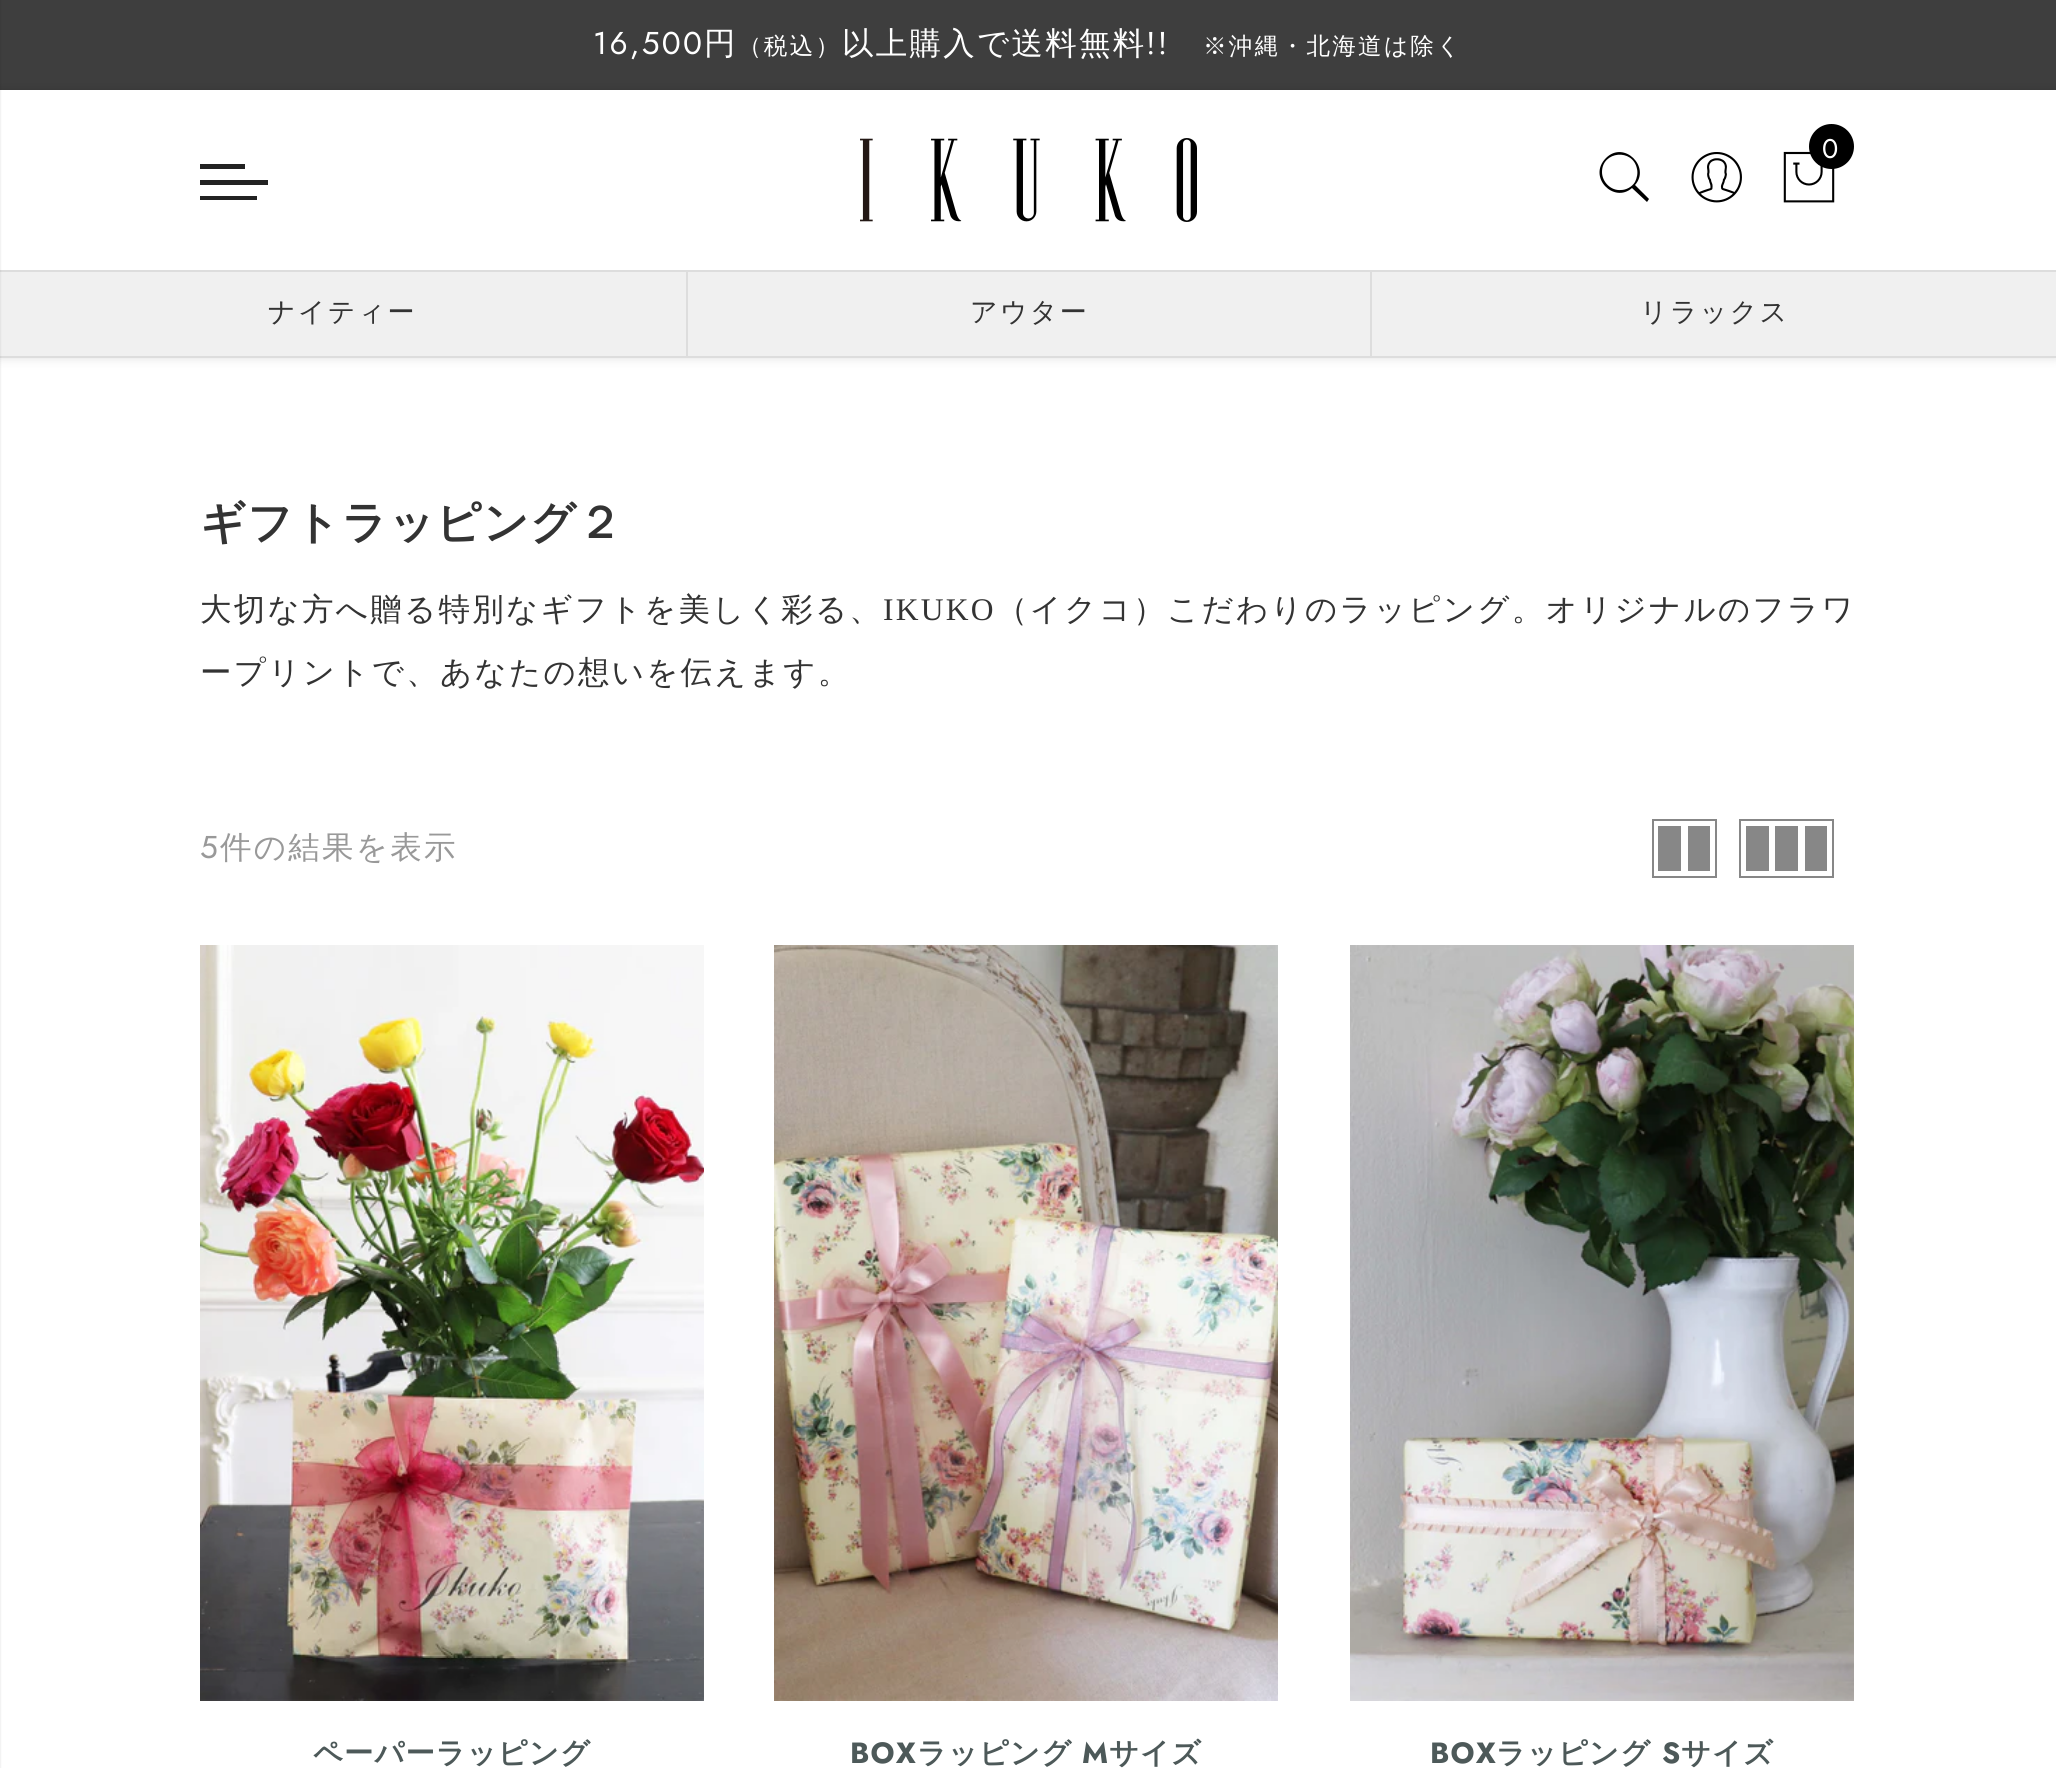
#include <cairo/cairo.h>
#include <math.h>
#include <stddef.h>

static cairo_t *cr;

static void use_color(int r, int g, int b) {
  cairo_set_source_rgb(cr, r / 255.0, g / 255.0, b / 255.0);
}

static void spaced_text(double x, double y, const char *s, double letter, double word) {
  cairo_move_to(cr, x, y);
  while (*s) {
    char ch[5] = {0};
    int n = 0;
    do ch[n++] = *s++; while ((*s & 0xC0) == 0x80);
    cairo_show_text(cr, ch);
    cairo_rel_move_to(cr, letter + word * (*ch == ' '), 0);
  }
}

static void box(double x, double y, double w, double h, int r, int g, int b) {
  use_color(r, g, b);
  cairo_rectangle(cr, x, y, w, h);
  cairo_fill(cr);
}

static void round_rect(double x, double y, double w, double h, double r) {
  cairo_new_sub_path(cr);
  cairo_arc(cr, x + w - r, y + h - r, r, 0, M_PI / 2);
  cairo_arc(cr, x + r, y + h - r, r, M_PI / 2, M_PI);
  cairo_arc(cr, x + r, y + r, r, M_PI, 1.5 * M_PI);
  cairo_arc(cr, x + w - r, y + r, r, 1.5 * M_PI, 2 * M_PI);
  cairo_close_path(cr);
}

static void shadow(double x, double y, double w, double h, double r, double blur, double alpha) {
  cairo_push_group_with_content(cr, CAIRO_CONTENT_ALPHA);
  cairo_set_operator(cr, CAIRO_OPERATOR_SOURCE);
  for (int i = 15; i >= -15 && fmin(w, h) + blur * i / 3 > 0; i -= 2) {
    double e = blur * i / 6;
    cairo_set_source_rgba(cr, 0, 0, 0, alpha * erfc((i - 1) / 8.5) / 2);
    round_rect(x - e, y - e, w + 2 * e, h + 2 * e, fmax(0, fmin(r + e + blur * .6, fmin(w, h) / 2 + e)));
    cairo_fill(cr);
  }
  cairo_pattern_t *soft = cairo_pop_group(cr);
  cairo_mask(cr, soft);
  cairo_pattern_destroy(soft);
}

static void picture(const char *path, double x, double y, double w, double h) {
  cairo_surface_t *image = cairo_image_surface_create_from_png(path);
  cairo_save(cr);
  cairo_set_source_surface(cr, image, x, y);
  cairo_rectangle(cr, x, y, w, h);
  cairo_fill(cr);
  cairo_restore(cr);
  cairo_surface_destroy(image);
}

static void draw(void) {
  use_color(255, 255, 255);
  cairo_paint(cr);
  box(0, 0, 2056, 90, 62, 62, 62);
  use_color(0, 0, 0);
  shadow(0, 90, 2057, 268, 0, 5.5, 0.12);
  box(0, 90, 2056, 180, 255, 255, 255);
  box(0, 356, 2056, 2, 221, 221, 221);
  picture("img_01.png", 860, 138, 337, 84);
  picture("img_02.png", 1783, 151, 52, 52);
  use_color(0, 0, 0);
  cairo_arc(cr, 1831.5, 146.5, 22.5, 0, 2 * M_PI);
  cairo_fill(cr);
  cairo_new_path(cr);
  cairo_move_to(cr, 1649, 199);
  cairo_line_to(cr, 1635, 185);
  cairo_curve_to(cr, 1651, 167, 1624, 140, 1606, 158);
  cairo_curve_to(cr, 1587, 177, 1614, 204, 1632, 188);
  cairo_line_to(cr, 1647, 202);
  cairo_close_path(cr);
  cairo_move_to(cr, 1602, 172);
  cairo_curve_to(cr, 1602, 151, 1633, 148, 1637, 169);
  cairo_curve_to(cr, 1638, 173, 1637, 178, 1635, 182);
  cairo_curve_to(cr, 1632, 187, 1626, 190, 1621, 190);
  cairo_curve_to(cr, 1611, 191, 1602, 182, 1602, 172);
  cairo_close_path(cr);
  cairo_fill(cr);
  picture("img_03.png", 1691, 152, 51, 51);
  box(200, 164, 45, 5, 34, 34, 34);
  box(200, 180, 68, 5, 34, 34, 34);
  box(200, 196, 57, 4, 34, 34, 34);
  box(0, 272, 2056, 84, 240, 240, 240);
  box(0, 270, 2056, 2, 221, 221, 221);
  box(686, 272, 2, 84, 221, 221, 221);
  box(1370, 272, 2, 84, 221, 221, 221);
  use_color(0, 0, 0);
  shadow(-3, 0, 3, 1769, 0, 1, 0.15);
  cairo_rectangle(cr, 1653, 820, 63, 57);
  use_color(135, 135, 135);
  cairo_stroke(cr);
  box(1688, 826, 22, 45, 135, 135, 135);
  box(1658, 826, 23, 45, 135, 135, 135);
  cairo_rectangle(cr, 1740, 820, 93, 57);
  cairo_stroke(cr);
  box(1805, 826, 22, 45, 135, 135, 135);
  box(1775, 826, 23, 45, 135, 135, 135);
  box(1746, 826, 23, 45, 135, 135, 135);
  picture("img_04.png", 200, 945, 504, 756);
  picture("img_05.png", 774, 945, 504, 756);
  picture("img_06.png", 1350, 945, 504, 756);
  cairo_select_font_face(cr, "Jost", CAIRO_FONT_SLANT_NORMAL, CAIRO_FONT_WEIGHT_NORMAL);
  cairo_set_font_size(cr, 31.5);
  use_color(255, 255, 255);
  spaced_text(593, 54, "16,500", 2.25, 0);
  cairo_select_font_face(cr, "WenQuanYi Zen Hei Medium", CAIRO_FONT_SLANT_NORMAL, CAIRO_FONT_WEIGHT_NORMAL);
  spaced_text(704, 54, "円", 2.25, 0);
  cairo_set_font_size(cr, 23.6);
  spaced_text(738, 54, "（税込）", 2.25, 0);
  cairo_set_font_size(cr, 31.5);
  spaced_text(842, 54, "以上購入で送料無料", 2.25, 0);
  cairo_select_font_face(cr, "Jost", CAIRO_FONT_SLANT_NORMAL, CAIRO_FONT_WEIGHT_NORMAL);
  spaced_text(1146, 54, "!!", 2.25, 0);
  cairo_select_font_face(cr, "WenQuanYi Zen Hei Medium", CAIRO_FONT_SLANT_NORMAL, CAIRO_FONT_WEIGHT_NORMAL);
  cairo_set_font_size(cr, 23.6);
  spaced_text(1203, 54, "※沖縄・北海道は除く", 2.25, 0);
  cairo_select_font_face(cr, "Jost", CAIRO_FONT_SLANT_NORMAL, CAIRO_FONT_WEIGHT_NORMAL);
  cairo_set_font_size(cr, 27);
  spaced_text(1822, 158, "0", 2.25, 0);
  cairo_select_font_face(cr, "WenQuanYi Zen Hei Medium", CAIRO_FONT_SLANT_NORMAL, CAIRO_FONT_WEIGHT_NORMAL);
  use_color(51, 51, 51);
  spaced_text(268, 321, "ナイティー", 2.25, 0);
  spaced_text(970, 321, "アウター", 2.25, 0);
  spaced_text(1640, 321, "リラックス", 2.25, 0);
  cairo_select_font_face(cr, "WenQuanYi Zen Hei", CAIRO_FONT_SLANT_NORMAL, CAIRO_FONT_WEIGHT_BOLD);
  cairo_set_font_size(cr, 45);
  spaced_text(200, 538, "ギフトラッピング２", 1.1, 0);
  cairo_select_font_face(cr, "WenQuanYi Zen Hei Medium", CAIRO_FONT_SLANT_NORMAL, CAIRO_FONT_WEIGHT_NORMAL);
  cairo_set_font_size(cr, 31.5);
  spaced_text(200, 620, "大切な方へ贈る特別なギフトを美しく彩る、", 2.25, 0);
  cairo_select_font_face(cr, "Liberation Serif", CAIRO_FONT_SLANT_NORMAL, CAIRO_FONT_WEIGHT_NORMAL);
  spaced_text(883, 620, "IKUKO", 2.25, 0);
  cairo_select_font_face(cr, "WenQuanYi Zen Hei Medium", CAIRO_FONT_SLANT_NORMAL, CAIRO_FONT_WEIGHT_NORMAL);
  spaced_text(996, 620, "（イクコ）こだわりのラッピング。オリジナルのフラワ", 2.25, 0);
  spaced_text(200, 683, "ープリントで、あなたの想いを伝えます。", 2.25, 0);
  cairo_select_font_face(cr, "Jost", CAIRO_FONT_SLANT_NORMAL, CAIRO_FONT_WEIGHT_NORMAL);
  use_color(153, 153, 153);
  spaced_text(200, 858, "5", 2.25, 0);
  cairo_select_font_face(cr, "WenQuanYi Zen Hei Medium", CAIRO_FONT_SLANT_NORMAL, CAIRO_FONT_WEIGHT_NORMAL);
  spaced_text(220, 858, "件の結果を表示", 2.25, 0);
  cairo_select_font_face(cr, "WenQuanYi Zen Hei", CAIRO_FONT_SLANT_NORMAL, CAIRO_FONT_WEIGHT_BOLD);
  cairo_set_font_size(cr, 29.25);
  use_color(77, 89, 89);
  spaced_text(313, 1763, "ペーパーラッピング", 1.1, 0);
  cairo_select_font_face(cr, "Jost", CAIRO_FONT_SLANT_NORMAL, CAIRO_FONT_WEIGHT_BOLD);
  spaced_text(850, 1763, "BOX", 1.1, 0);
  cairo_select_font_face(cr, "WenQuanYi Zen Hei", CAIRO_FONT_SLANT_NORMAL, CAIRO_FONT_WEIGHT_BOLD);
  spaced_text(917, 1763, "ラッピング", 1.1, 0);
  cairo_select_font_face(cr, "Jost", CAIRO_FONT_SLANT_NORMAL, CAIRO_FONT_WEIGHT_BOLD);
  spaced_text(1082, 1763, "M", 1.1, 0);
  cairo_select_font_face(cr, "WenQuanYi Zen Hei", CAIRO_FONT_SLANT_NORMAL, CAIRO_FONT_WEIGHT_BOLD);
  spaced_text(1109, 1763, "サイズ", 1.1, 0);
  cairo_select_font_face(cr, "Jost", CAIRO_FONT_SLANT_NORMAL, CAIRO_FONT_WEIGHT_BOLD);
  spaced_text(1430, 1763, "BOX", 1.1, 0);
  cairo_select_font_face(cr, "WenQuanYi Zen Hei", CAIRO_FONT_SLANT_NORMAL, CAIRO_FONT_WEIGHT_BOLD);
  spaced_text(1496, 1763, "ラッピング", 1.1, 0);
  cairo_select_font_face(cr, "Jost", CAIRO_FONT_SLANT_NORMAL, CAIRO_FONT_WEIGHT_BOLD);
  spaced_text(1662, 1763, "S", 1.1, 0);
  cairo_select_font_face(cr, "WenQuanYi Zen Hei", CAIRO_FONT_SLANT_NORMAL, CAIRO_FONT_WEIGHT_BOLD);
  spaced_text(1681, 1763, "サイズ", 1.1, 0);
}

int main(void) {
  cairo_surface_t *surface = cairo_image_surface_create(CAIRO_FORMAT_RGB24, 2056, 1768);
  cr = cairo_create(surface);
  cairo_font_options_t *options = cairo_font_options_create();
  cairo_font_options_set_hint_metrics(options, CAIRO_HINT_METRICS_OFF);
  cairo_font_options_set_hint_style(options, CAIRO_HINT_STYLE_NONE);
  cairo_set_font_options(cr, options);
  cairo_set_miter_limit(cr, 4);
  draw();
  cairo_surface_write_to_png(surface, "out.png");
  cairo_font_options_destroy(options);
  cairo_destroy(cr);
  cairo_surface_destroy(surface);
  return 0;
}
